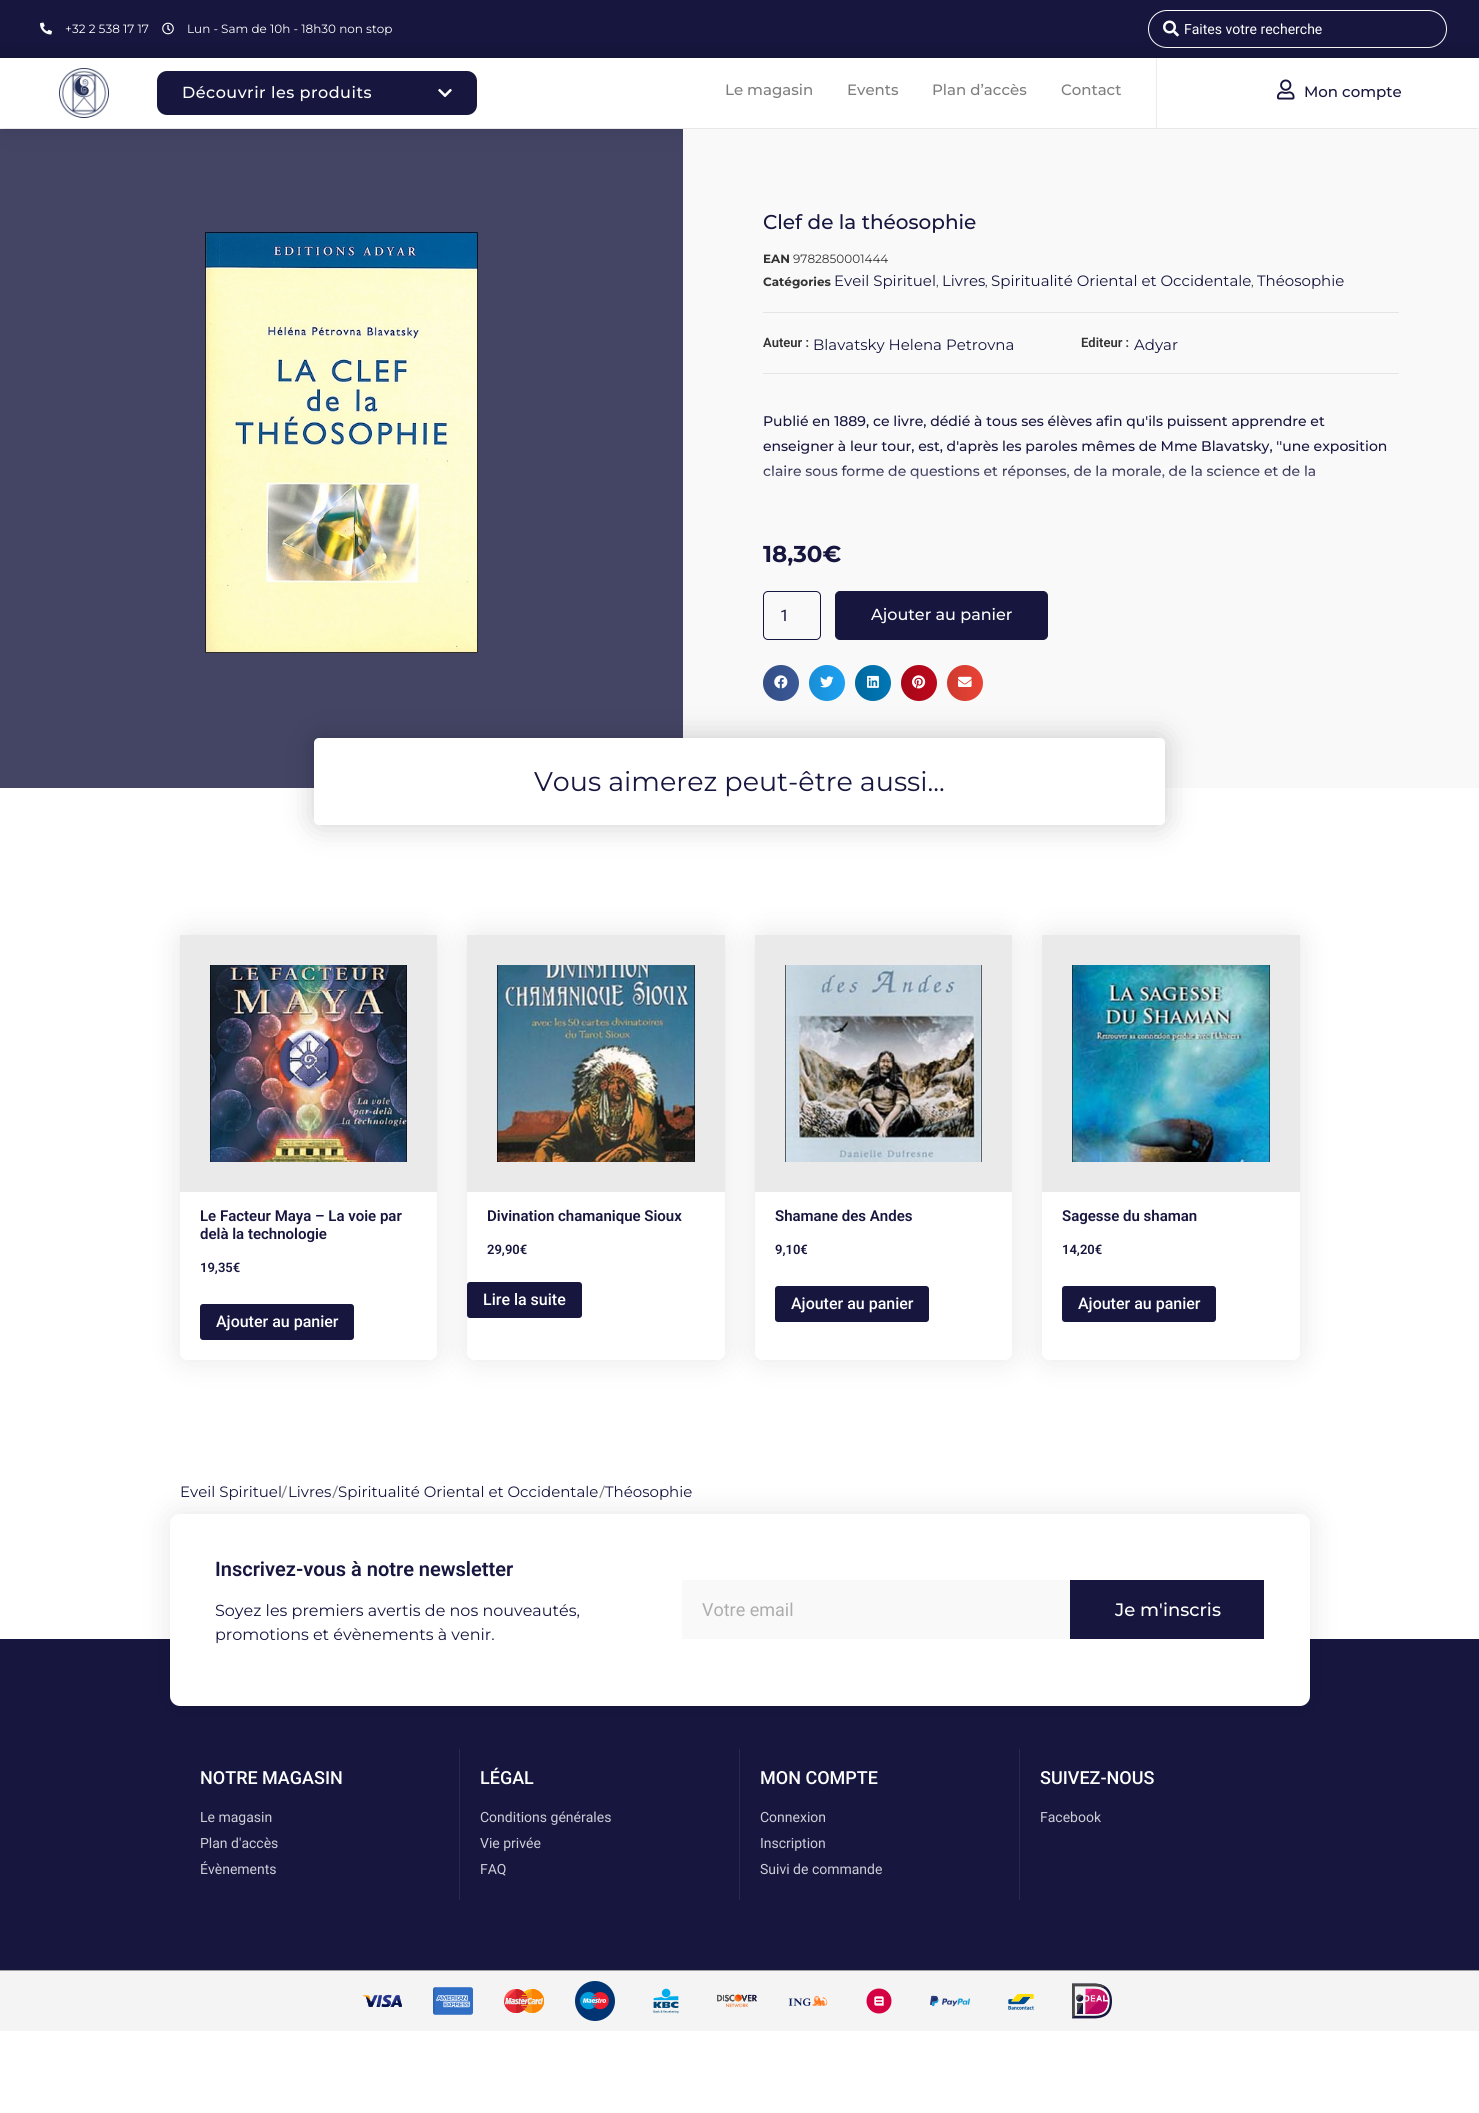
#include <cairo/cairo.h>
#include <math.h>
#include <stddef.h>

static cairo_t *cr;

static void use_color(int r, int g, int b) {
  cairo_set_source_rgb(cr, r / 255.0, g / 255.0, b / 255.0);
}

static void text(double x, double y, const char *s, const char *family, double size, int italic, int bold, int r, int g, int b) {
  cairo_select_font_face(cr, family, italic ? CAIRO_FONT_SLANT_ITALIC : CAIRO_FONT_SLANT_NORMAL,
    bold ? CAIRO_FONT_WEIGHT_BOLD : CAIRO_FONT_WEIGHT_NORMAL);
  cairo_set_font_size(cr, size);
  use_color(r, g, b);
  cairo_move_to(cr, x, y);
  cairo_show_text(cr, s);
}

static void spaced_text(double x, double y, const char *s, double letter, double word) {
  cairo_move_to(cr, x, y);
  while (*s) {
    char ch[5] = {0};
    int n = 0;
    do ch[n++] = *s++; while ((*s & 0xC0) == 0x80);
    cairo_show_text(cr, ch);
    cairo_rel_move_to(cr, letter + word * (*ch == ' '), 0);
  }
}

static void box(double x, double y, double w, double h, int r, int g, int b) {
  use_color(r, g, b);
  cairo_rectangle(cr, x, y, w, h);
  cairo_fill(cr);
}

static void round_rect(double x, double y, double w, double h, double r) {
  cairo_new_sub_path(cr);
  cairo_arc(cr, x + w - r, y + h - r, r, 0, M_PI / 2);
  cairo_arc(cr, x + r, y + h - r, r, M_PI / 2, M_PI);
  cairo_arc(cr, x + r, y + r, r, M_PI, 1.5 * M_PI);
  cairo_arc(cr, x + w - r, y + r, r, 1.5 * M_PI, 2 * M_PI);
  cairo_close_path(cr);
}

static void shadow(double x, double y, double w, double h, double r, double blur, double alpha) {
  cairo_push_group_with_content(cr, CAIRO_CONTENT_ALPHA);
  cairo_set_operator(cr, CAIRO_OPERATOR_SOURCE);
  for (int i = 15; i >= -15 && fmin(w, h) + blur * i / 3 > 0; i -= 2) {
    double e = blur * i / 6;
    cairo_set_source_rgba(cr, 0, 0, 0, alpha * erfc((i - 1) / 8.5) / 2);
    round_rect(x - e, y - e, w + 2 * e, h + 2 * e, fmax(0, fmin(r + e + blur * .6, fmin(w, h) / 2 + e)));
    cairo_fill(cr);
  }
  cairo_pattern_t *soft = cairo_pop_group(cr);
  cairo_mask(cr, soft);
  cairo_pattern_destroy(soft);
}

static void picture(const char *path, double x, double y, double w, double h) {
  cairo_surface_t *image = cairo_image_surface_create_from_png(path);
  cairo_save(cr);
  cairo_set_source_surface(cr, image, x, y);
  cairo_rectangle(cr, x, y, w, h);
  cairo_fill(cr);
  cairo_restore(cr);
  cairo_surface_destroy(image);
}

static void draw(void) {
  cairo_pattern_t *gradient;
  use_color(255, 255, 255);
  cairo_paint(cr);
  box(0, 0, 1479, 58, 22, 22, 63);
  picture("img_01.png", 40, 22, 12, 13);
  picture("img_02.png", 162, 22, 12, 13);
  round_rect(1148.5, 10.5, 298, 37, 18.5);
  use_color(255, 255, 255);
  cairo_set_line_width(cr, 1);
  cairo_stroke(cr);
  picture("img_03.png", 1163, 20, 16, 17);
  cairo_save(cr);
  cairo_set_fill_rule(cr, CAIRO_FILL_RULE_EVEN_ODD);
  cairo_new_path(cr);
  cairo_move_to(cr, 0, 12);
  cairo_line_to(cr, 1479, 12);
  cairo_line_to(cr, 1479, 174);
  cairo_line_to(cr, 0, 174);
  cairo_close_path(cr);
  cairo_move_to(cr, 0, 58);
  cairo_line_to(cr, 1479, 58);
  cairo_line_to(cr, 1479, 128);
  cairo_line_to(cr, 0, 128);
  cairo_close_path(cr);
  cairo_clip(cr);
  use_color(0, 0, 0);
  shadow(0, 58, 1479, 70, 0, 15, 0.19);
  cairo_restore(cr);
  picture("img_04.png", 59, 68, 50, 50);
  use_color(22, 22, 63);
  round_rect(157, 71, 320, 44, 10);
  cairo_fill(cr);
  picture("img_05.png", 438, 88, 14, 10);
  box(1156, 58, 1, 70, 236, 236, 236);
  picture("img_06.png", 1277, 79, 18, 21);
  cairo_set_source_rgba(cr, 0.086, 0.086, 0.247, 0.8);
  cairo_rectangle(cr, 0, 129, 683, 659);
  cairo_fill(cr);
  picture("img_07.png", 205, 232, 273, 421);
  box(683, 129, 796, 659, 249, 249, 249);
  box(763, 312, 636, 1, 229, 229, 232);
  box(763, 373, 636, 1, 229, 229, 232);
  round_rect(763.5, 591.5, 57, 48, 4.5);
  use_color(22, 22, 63);
  cairo_stroke(cr);
  round_rect(835.5, 591.5, 212, 48, 4.5);
  cairo_fill_preserve(cr);
  cairo_stroke(cr);
  use_color(59, 89, 152);
  cairo_arc(cr, 781, 683, 18, 0, 2 * M_PI);
  cairo_fill(cr);
  gradient = cairo_pattern_create_linear(763, 683, 799, 683);
  cairo_pattern_add_color_stop_rgba(gradient, 0, 0, 0, 0, 0.12);
  cairo_pattern_add_color_stop_rgba(gradient, 1, 0, 0, 0, 0);
  cairo_set_source(cr, gradient);
  cairo_pattern_destroy(gradient);
  cairo_arc(cr, 781, 683, 18, 0, 2 * M_PI);
  cairo_fill(cr);
  picture("img_08.png", 774, 675, 14, 14);
  use_color(29, 161, 242);
  cairo_arc(cr, 827, 683, 18, 0, 2 * M_PI);
  cairo_fill(cr);
  gradient = cairo_pattern_create_linear(809, 683, 845, 683);
  cairo_pattern_add_color_stop_rgba(gradient, 0, 0, 0, 0, 0.12);
  cairo_pattern_add_color_stop_rgba(gradient, 1, 0, 0, 0, 0);
  cairo_set_source(cr, gradient);
  cairo_pattern_destroy(gradient);
  cairo_arc(cr, 827, 683, 18, 0, 2 * M_PI);
  cairo_fill(cr);
  picture("img_09.png", 820, 676, 14, 12);
  use_color(0, 119, 181);
  cairo_arc(cr, 873, 683, 18, 0, 2 * M_PI);
  cairo_fill(cr);
  gradient = cairo_pattern_create_linear(855, 683, 891, 683);
  cairo_pattern_add_color_stop_rgba(gradient, 0, 0, 0, 0, 0.12);
  cairo_pattern_add_color_stop_rgba(gradient, 1, 0, 0, 0, 0);
  cairo_set_source(cr, gradient);
  cairo_pattern_destroy(gradient);
  cairo_arc(cr, 873, 683, 18, 0, 2 * M_PI);
  cairo_fill(cr);
  picture("img_10.png", 867, 675, 12, 13);
  use_color(189, 8, 28);
  cairo_arc(cr, 919, 683, 18, 0, 2 * M_PI);
  cairo_fill(cr);
  gradient = cairo_pattern_create_linear(901, 683, 937, 683);
  cairo_pattern_add_color_stop_rgba(gradient, 0, 0, 0, 0, 0.12);
  cairo_pattern_add_color_stop_rgba(gradient, 1, 0, 0, 0, 0);
  cairo_set_source(cr, gradient);
  cairo_pattern_destroy(gradient);
  cairo_arc(cr, 919, 683, 18, 0, 2 * M_PI);
  cairo_fill(cr);
  picture("img_11.png", 912, 675, 14, 14);
  use_color(234, 67, 53);
  cairo_arc(cr, 965, 683, 18, 0, 2 * M_PI);
  cairo_fill(cr);
  gradient = cairo_pattern_create_linear(947, 683, 983, 683);
  cairo_pattern_add_color_stop_rgba(gradient, 0, 0, 0, 0, 0.12);
  cairo_pattern_add_color_stop_rgba(gradient, 1, 0, 0, 0, 0);
  cairo_set_source(cr, gradient);
  cairo_pattern_destroy(gradient);
  cairo_arc(cr, 965, 683, 18, 0, 2 * M_PI);
  cairo_fill(cr);
  picture("img_12.png", 958, 676, 14, 11);
  use_color(0, 0, 0);
  shadow(314, 738, 851, 87, 5, 15, 0.2);
  use_color(255, 255, 255);
  round_rect(314, 738, 851, 87, 5);
  cairo_fill(cr);
  cairo_save(cr);
  cairo_set_fill_rule(cr, CAIRO_FILL_RULE_EVEN_ODD);
  cairo_new_path(cr);
  cairo_move_to(cr, 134, 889);
  cairo_line_to(cr, 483, 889);
  cairo_line_to(cr, 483, 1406);
  cairo_line_to(cr, 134, 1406);
  cairo_close_path(cr);
  cairo_move_to(cr, 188, 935);
  cairo_line_to(cr, 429, 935);
  cairo_curve_to(cr, 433.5, 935, 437, 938.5, 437, 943);
  cairo_line_to(cr, 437, 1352);
  cairo_curve_to(cr, 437, 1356.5, 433.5, 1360, 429, 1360);
  cairo_line_to(cr, 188, 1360);
  cairo_curve_to(cr, 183.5, 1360, 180, 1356.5, 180, 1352);
  cairo_line_to(cr, 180, 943);
  cairo_curve_to(cr, 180, 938.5, 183.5, 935, 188, 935);
  cairo_close_path(cr);
  cairo_clip(cr);
  use_color(0, 0, 0);
  shadow(180, 935, 257, 425, 8, 15, 0.1);
  cairo_restore(cr);
  cairo_new_path(cr);
  cairo_move_to(cr, 195, 950);
  cairo_line_to(cr, 422, 950);
  cairo_line_to(cr, 422, 1177);
  cairo_line_to(cr, 195, 1177);
  cairo_close_path(cr);
  use_color(234, 234, 234);
  cairo_set_line_width(cr, 30);
  cairo_stroke(cr);
  picture("img_13.png", 210, 965, 197, 197);
  use_color(22, 22, 63);
  round_rect(200, 1304, 154, 36, 3);
  cairo_fill(cr);
  cairo_save(cr);
  cairo_set_fill_rule(cr, CAIRO_FILL_RULE_EVEN_ODD);
  cairo_new_path(cr);
  cairo_move_to(cr, 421, 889);
  cairo_line_to(cr, 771, 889);
  cairo_line_to(cr, 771, 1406);
  cairo_line_to(cr, 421, 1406);
  cairo_close_path(cr);
  cairo_move_to(cr, 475, 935);
  cairo_line_to(cr, 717, 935);
  cairo_curve_to(cr, 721.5, 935, 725, 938.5, 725, 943);
  cairo_line_to(cr, 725, 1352);
  cairo_curve_to(cr, 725, 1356.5, 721.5, 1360, 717, 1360);
  cairo_line_to(cr, 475, 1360);
  cairo_curve_to(cr, 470.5, 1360, 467, 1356.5, 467, 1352);
  cairo_line_to(cr, 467, 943);
  cairo_curve_to(cr, 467, 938.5, 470.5, 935, 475, 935);
  cairo_close_path(cr);
  cairo_clip(cr);
  use_color(0, 0, 0);
  shadow(467, 935, 258, 425, 8, 15, 0.1);
  cairo_restore(cr);
  cairo_new_path(cr);
  cairo_move_to(cr, 482, 950);
  cairo_line_to(cr, 710, 950);
  cairo_line_to(cr, 710, 1177);
  cairo_line_to(cr, 482, 1177);
  cairo_close_path(cr);
  use_color(234, 234, 234);
  cairo_stroke(cr);
  picture("img_14.png", 497, 965, 198, 197);
  use_color(22, 22, 63);
  round_rect(467, 1282, 115, 36, 3);
  cairo_fill(cr);
  cairo_save(cr);
  cairo_set_fill_rule(cr, CAIRO_FILL_RULE_EVEN_ODD);
  cairo_new_path(cr);
  cairo_move_to(cr, 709, 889);
  cairo_line_to(cr, 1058, 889);
  cairo_line_to(cr, 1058, 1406);
  cairo_line_to(cr, 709, 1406);
  cairo_close_path(cr);
  cairo_move_to(cr, 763, 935);
  cairo_line_to(cr, 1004, 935);
  cairo_curve_to(cr, 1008.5, 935, 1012, 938.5, 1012, 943);
  cairo_line_to(cr, 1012, 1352);
  cairo_curve_to(cr, 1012, 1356.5, 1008.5, 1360, 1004, 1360);
  cairo_line_to(cr, 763, 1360);
  cairo_curve_to(cr, 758.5, 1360, 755, 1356.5, 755, 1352);
  cairo_line_to(cr, 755, 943);
  cairo_curve_to(cr, 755, 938.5, 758.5, 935, 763, 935);
  cairo_close_path(cr);
  cairo_clip(cr);
  use_color(0, 0, 0);
  shadow(755, 935, 257, 425, 8, 15, 0.1);
  cairo_restore(cr);
  cairo_new_path(cr);
  cairo_move_to(cr, 770, 950);
  cairo_line_to(cr, 997, 950);
  cairo_line_to(cr, 997, 1177);
  cairo_line_to(cr, 770, 1177);
  cairo_close_path(cr);
  use_color(234, 234, 234);
  cairo_stroke(cr);
  picture("img_15.png", 785, 965, 197, 197);
  use_color(22, 22, 63);
  round_rect(775, 1286, 154, 36, 3);
  cairo_fill(cr);
  cairo_save(cr);
  cairo_set_fill_rule(cr, CAIRO_FILL_RULE_EVEN_ODD);
  cairo_new_path(cr);
  cairo_move_to(cr, 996, 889);
  cairo_line_to(cr, 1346, 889);
  cairo_line_to(cr, 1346, 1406);
  cairo_line_to(cr, 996, 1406);
  cairo_close_path(cr);
  cairo_move_to(cr, 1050, 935);
  cairo_line_to(cr, 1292, 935);
  cairo_curve_to(cr, 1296.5, 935, 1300, 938.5, 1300, 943);
  cairo_line_to(cr, 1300, 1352);
  cairo_curve_to(cr, 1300, 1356.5, 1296.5, 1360, 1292, 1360);
  cairo_line_to(cr, 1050, 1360);
  cairo_curve_to(cr, 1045.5, 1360, 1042, 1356.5, 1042, 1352);
  cairo_line_to(cr, 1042, 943);
  cairo_curve_to(cr, 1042, 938.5, 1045.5, 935, 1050, 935);
  cairo_close_path(cr);
  cairo_clip(cr);
  use_color(0, 0, 0);
  shadow(1042, 935, 258, 425, 8, 15, 0.1);
  cairo_restore(cr);
  cairo_new_path(cr);
  cairo_move_to(cr, 1057, 950);
  cairo_line_to(cr, 1285, 950);
  cairo_line_to(cr, 1285, 1177);
  cairo_line_to(cr, 1057, 1177);
  cairo_close_path(cr);
  use_color(234, 234, 234);
  cairo_stroke(cr);
  picture("img_16.png", 1072, 965, 198, 197);
  use_color(22, 22, 63);
  round_rect(1062, 1286, 154, 36, 3);
  cairo_fill(cr);
  box(0, 1639, 1479, 331, 22, 22, 63);
  box(459, 1749, 1, 151, 41, 41, 78);
  box(739, 1749, 1, 151, 41, 41, 78);
  box(1019, 1749, 1, 151, 41, 41, 78);
  use_color(0, 0, 0);
  shadow(170, 1514, 1140, 192, 10, 15, 0.1);
  use_color(255, 255, 255);
  round_rect(170, 1514, 1140, 192, 10);
  cairo_fill(cr);
  box(682, 1580, 388, 59, 249, 249, 249);
  box(1070, 1580, 194, 59, 22, 22, 63);
  box(0, 1971, 1479, 60, 244, 244, 244);
  box(0, 1970, 1479, 1, 158, 158, 158);
  picture("img_17.png", 362, 1994, 40, 14);
  picture("img_18.png", 433, 1987, 40, 28);
  picture("img_19.png", 504, 1989, 40, 24);
  picture("img_20.png", 575, 1981, 40, 40);
  picture("img_21.png", 653, 1988, 26, 26);
  picture("img_22.png", 717, 1994, 40, 14);
  picture("img_23.png", 788, 1996, 40, 10);
  picture("img_24.png", 866, 1988, 26, 26);
  picture("img_25.png", 930, 1995, 40, 12);
  picture("img_26.png", 1008, 1993, 26, 17);
  picture("img_27.png", 1072, 1983, 40, 36);
  text(65, 33, "+32 2 538 17 17", "Montserrat", 12, 0, 0, 255, 255, 255);
  text(187, 33, "Lun - Sam de 10h - 18h30 non stop", "Montserrat", 12, 0, 0, 255, 255, 255);
  text(1184, 34, "Faites votre recherche", "Roboto", 14, 0, 0, 255, 255, 255);
  cairo_select_font_face(cr, "Montserrat Medium", CAIRO_FONT_SLANT_NORMAL, CAIRO_FONT_WEIGHT_NORMAL);
  cairo_set_font_size(cr, 16);
  spaced_text(182, 98, "Découvrir les produits", 0.5, 0);
  text(725, 95, "Le magasin", "Montserrat Medium", 15, 0, 0, 126, 126, 126);
  text(847, 95, "Events", "Montserrat Medium", 15, 0, 0, 126, 126, 126);
  text(932, 95, "Plan d’accès", "Montserrat Medium", 15, 0, 0, 126, 126, 126);
  text(1061, 95, "Contact", "Montserrat Medium", 15, 0, 0, 126, 126, 126);
  text(1304, 97, "Mon compte", "Montserrat Medium", 15, 0, 0, 22, 22, 63);
  text(763, 229, "Clef de la théosophie", "Montserrat Medium", 20, 0, 0, 22, 22, 63);
  text(763, 263, "EAN", "Montserrat", 12, 0, 1, 51, 51, 51);
  text(793, 263, "9782850001444", "Montserrat", 12, 0, 0, 51, 51, 51);
  text(763, 286, "Catégories", "Montserrat", 12, 0, 1, 51, 51, 51);
  text(834, 286, "Eveil Spirituel", "Montserrat", 15, 0, 0, 22, 22, 63);
  text(936, 286, ",", "Montserrat", 12, 0, 0, 51, 51, 51);
  text(942, 286, "Livres", "Montserrat", 15, 0, 0, 22, 22, 63);
  text(985, 286, ",", "Montserrat", 12, 0, 0, 51, 51, 51);
  text(991, 286, "Spiritualité Oriental et Occidentale", "Montserrat", 15, 0, 0, 22, 22, 63);
  text(1251, 286, ",", "Montserrat", 12, 0, 0, 51, 51, 51);
  text(1257, 286, "Théosophie", "Montserrat", 15, 0, 0, 22, 22, 63);
  text(763, 347, "Auteur :", "Roboto SemiBold", 13, 0, 0, 51, 51, 51);
  text(813, 350, "Blavatsky Helena Petrovna", "Montserrat", 15, 0, 0, 22, 22, 63);
  text(1081, 347, "Editeur :", "Roboto SemiBold", 13, 0, 0, 51, 51, 51);
  text(1134, 350, "Adyar", "Montserrat", 15, 0, 0, 22, 22, 63);
  text(763, 426, "Publié en 1889, ce livre, dédié à tous ses élèves afin qu'ils puissent apprendre et", "Montserrat Medium", 14, 0, 0, 22, 22, 63);
  text(763, 451, "enseigner à leur tour, est, d'après les paroles mêmes de Mme Blavatsky, ''une exposition", "Montserrat Medium", 14, 0, 0, 22, 22, 63);
  text(763, 476, "claire sous forme de questions et réponses, de la morale, de la science et de la", "Montserrat Medium", 14, 0, 0, 22, 22, 63);
  gradient = cairo_pattern_create_linear(1081, 465, 1081, 502);
  cairo_pattern_add_color_stop_rgba(gradient, 0, 0.976, 0.976, 0.976, 0);
  cairo_pattern_add_color_stop_rgba(gradient, 1, 0.976, 0.976, 0.976, 1);
  cairo_set_source(cr, gradient);
  cairo_pattern_destroy(gradient);
  cairo_rectangle(cr, 763, 466, 552, 13);
  cairo_fill(cr);
  text(763, 562, "18,30€", "Montserrat", 23, 0, 1, 22, 22, 63);
  text(780, 621, "1", "Roboto", 16, 0, 0, 22, 22, 63);
  text(871, 620, "Ajouter au panier", "Montserrat Medium", 16, 0, 0, 255, 255, 255);
  text(534, 791, "Vous aimerez peut-être aussi...", "Montserrat", 27, 0, 0, 22, 22, 63);
  text(200, 1221, "Le Facteur Maya – La voie par", "Roboto SemiBold", 15, 0, 0, 22, 22, 63);
  text(200, 1239, "delà la technologie", "Roboto SemiBold", 15, 0, 0, 22, 22, 63);
  text(200, 1272, "19,35€", "Roboto SemiBold", 13, 0, 0, 22, 22, 63);
  text(216, 1327, "Ajouter au panier", "Roboto Medium", 16, 0, 0, 255, 255, 255);
  text(487, 1221, "Divination chamanique Sioux", "Roboto SemiBold", 15, 0, 0, 22, 22, 63);
  text(487, 1254, "29,90€", "Roboto SemiBold", 13, 0, 0, 22, 22, 63);
  text(483, 1305, "Lire la suite", "Roboto Medium", 16, 0, 0, 255, 255, 255);
  text(775, 1221, "Shamane des Andes", "Roboto SemiBold", 15, 0, 0, 22, 22, 63);
  text(775, 1254, "9,10€", "Roboto SemiBold", 13, 0, 0, 22, 22, 63);
  text(791, 1309, "Ajouter au panier", "Roboto Medium", 16, 0, 0, 255, 255, 255);
  text(1062, 1221, "Sagesse du shaman", "Roboto SemiBold", 15, 0, 0, 22, 22, 63);
  text(1062, 1254, "14,20€", "Roboto SemiBold", 13, 0, 0, 22, 22, 63);
  text(1078, 1309, "Ajouter au panier", "Roboto Medium", 16, 0, 0, 255, 255, 255);
  text(180, 1497, "Eveil Spirituel", "Montserrat", 15, 0, 0, 22, 22, 63);
  text(281, 1497, "/", "Roboto", 16, 0, 0, 126, 126, 126);
  text(288, 1497, "Livres", "Montserrat", 15, 0, 0, 22, 22, 63);
  text(332, 1497, "/", "Roboto", 16, 0, 0, 126, 126, 126);
  text(338, 1497, "Spiritualité Oriental et Occidentale", "Montserrat", 15, 0, 0, 22, 22, 63);
  text(599, 1497, "/", "Roboto", 16, 0, 0, 126, 126, 126);
  text(605, 1497, "Théosophie", "Montserrat", 15, 0, 0, 22, 22, 63);
  text(215, 1576, "Inscrivez-vous à notre newsletter", "Roboto SemiBold", 20, 0, 0, 22, 22, 63);
  text(215, 1616, "Soyez les premiers avertis de nos nouveautés,", "Montserrat", 16, 0, 0, 22, 22, 63);
  text(215, 1640, "promotions et évènements à venir.", "Montserrat", 16, 0, 0, 22, 22, 63);
  text(702, 1616, "Votre email", "Roboto", 18, 0, 0, 173, 173, 173);
  text(1115, 1616, "Je m'inscris", "Montserrat Medium", 18, 0, 0, 255, 255, 255);
  text(200, 1784, "NOTRE MAGASIN", "Roboto Medium", 18, 0, 0, 255, 255, 255);
  text(200, 1822, "Le magasin", "Roboto", 14, 0, 0, 206, 206, 215);
  text(200, 1848, "Plan d'accès", "Roboto", 14, 0, 0, 206, 206, 215);
  text(200, 1874, "Évènements", "Roboto", 14, 0, 0, 206, 206, 215);
  text(480, 1784, "LÉGAL", "Roboto Medium", 18, 0, 0, 255, 255, 255);
  text(480, 1822, "Conditions générales", "Roboto", 14, 0, 0, 206, 206, 215);
  text(480, 1848, "Vie privée", "Roboto", 14, 0, 0, 206, 206, 215);
  text(480, 1874, "FAQ", "Roboto", 14, 0, 0, 206, 206, 215);
  text(760, 1784, "MON COMPTE", "Roboto Medium", 18, 0, 0, 255, 255, 255);
  text(760, 1822, "Connexion", "Roboto", 14, 0, 0, 206, 206, 215);
  text(760, 1848, "Inscription", "Roboto", 14, 0, 0, 206, 206, 215);
  text(760, 1874, "Suivi de commande", "Roboto", 14, 0, 0, 206, 206, 215);
  text(1040, 1784, "SUIVEZ-NOUS", "Roboto Medium", 18, 0, 0, 255, 255, 255);
  text(1040, 1822, "Facebook", "Roboto", 14, 0, 0, 206, 206, 215);
}

int main(void) {
  cairo_surface_t *surface = cairo_image_surface_create(CAIRO_FORMAT_RGB24, 1479, 2113);
  cr = cairo_create(surface);
  cairo_font_options_t *options = cairo_font_options_create();
  cairo_font_options_set_hint_metrics(options, CAIRO_HINT_METRICS_OFF);
  cairo_font_options_set_hint_style(options, CAIRO_HINT_STYLE_NONE);
  cairo_set_font_options(cr, options);
  cairo_set_miter_limit(cr, 4);
  draw();
  cairo_surface_write_to_png(surface, "out.png");
  cairo_font_options_destroy(options);
  cairo_destroy(cr);
  cairo_surface_destroy(surface);
  return 0;
}
